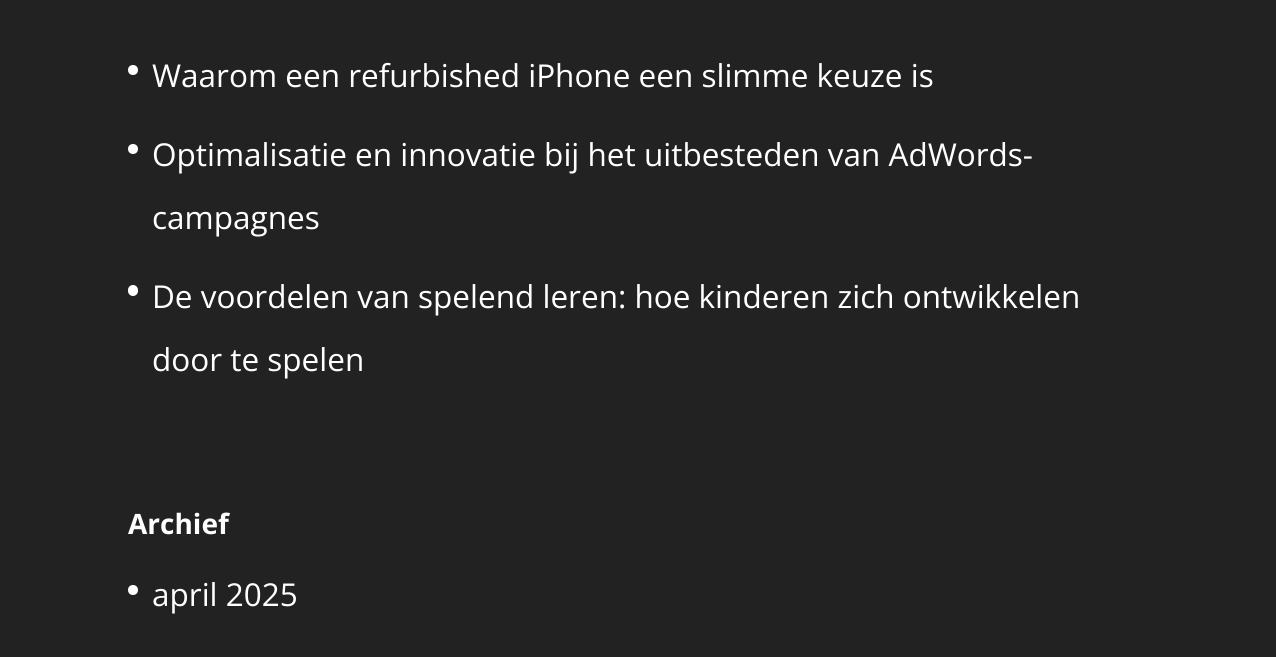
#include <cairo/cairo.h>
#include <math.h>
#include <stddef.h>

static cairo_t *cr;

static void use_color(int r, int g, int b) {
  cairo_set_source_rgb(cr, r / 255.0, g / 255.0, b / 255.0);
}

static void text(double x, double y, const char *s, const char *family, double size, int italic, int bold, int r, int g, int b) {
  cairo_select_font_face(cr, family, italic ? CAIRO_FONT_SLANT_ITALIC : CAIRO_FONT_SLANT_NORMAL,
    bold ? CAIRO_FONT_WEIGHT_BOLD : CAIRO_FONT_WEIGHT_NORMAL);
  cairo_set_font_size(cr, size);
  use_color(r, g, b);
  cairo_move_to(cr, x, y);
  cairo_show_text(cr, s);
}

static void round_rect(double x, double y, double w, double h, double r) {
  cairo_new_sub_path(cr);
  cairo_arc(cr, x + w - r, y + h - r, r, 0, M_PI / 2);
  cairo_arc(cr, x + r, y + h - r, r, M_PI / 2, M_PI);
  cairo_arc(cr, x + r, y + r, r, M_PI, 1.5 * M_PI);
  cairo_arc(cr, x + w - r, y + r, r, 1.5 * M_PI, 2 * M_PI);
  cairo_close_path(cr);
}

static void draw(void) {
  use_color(34, 34, 34);
  cairo_paint(cr);
  use_color(255, 255, 255);
  cairo_arc(cr, 133, 70, 5, 0, 2 * M_PI);
  cairo_fill(cr);
  cairo_arc(cr, 133, 149, 5, 0, 2 * M_PI);
  cairo_fill(cr);
  round_rect(128, 285, 10, 11, 5);
  cairo_fill(cr);
  cairo_arc(cr, 133, 590, 5, 0, 2 * M_PI);
  cairo_fill(cr);
  text(152, 87, "Waarom een refurbished iPhone een slimme keuze is", "Open Sans", 31.5, 0, 0, 255, 255, 255);
  text(152, 166, "Optimalisatie en innovatie bij het uitbesteden van AdWords-", "Open Sans", 31.5, 0, 0, 255, 255, 255);
  text(152, 229, "campagnes", "Open Sans", 31.5, 0, 0, 255, 255, 255);
  text(152, 308, "De voordelen van spelend leren: hoe kinderen zich ontwikkelen", "Open Sans", 31.5, 0, 0, 255, 255, 255);
  text(152, 371, "door te spelen", "Open Sans", 31.5, 0, 0, 255, 255, 255);
  text(128, 534, "Archief", "Open Sans", 28, 0, 1, 255, 255, 255);
  text(152, 606, "april 2025", "Open Sans", 31.5, 0, 0, 255, 255, 255);
}

int main(void) {
  cairo_surface_t *surface = cairo_image_surface_create(CAIRO_FORMAT_RGB24, 1276, 657);
  cr = cairo_create(surface);
  cairo_font_options_t *options = cairo_font_options_create();
  cairo_font_options_set_hint_metrics(options, CAIRO_HINT_METRICS_OFF);
  cairo_font_options_set_hint_style(options, CAIRO_HINT_STYLE_NONE);
  cairo_set_font_options(cr, options);
  cairo_set_miter_limit(cr, 4);
  draw();
  cairo_surface_write_to_png(surface, "out.png");
  cairo_font_options_destroy(options);
  cairo_destroy(cr);
  cairo_surface_destroy(surface);
  return 0;
}
